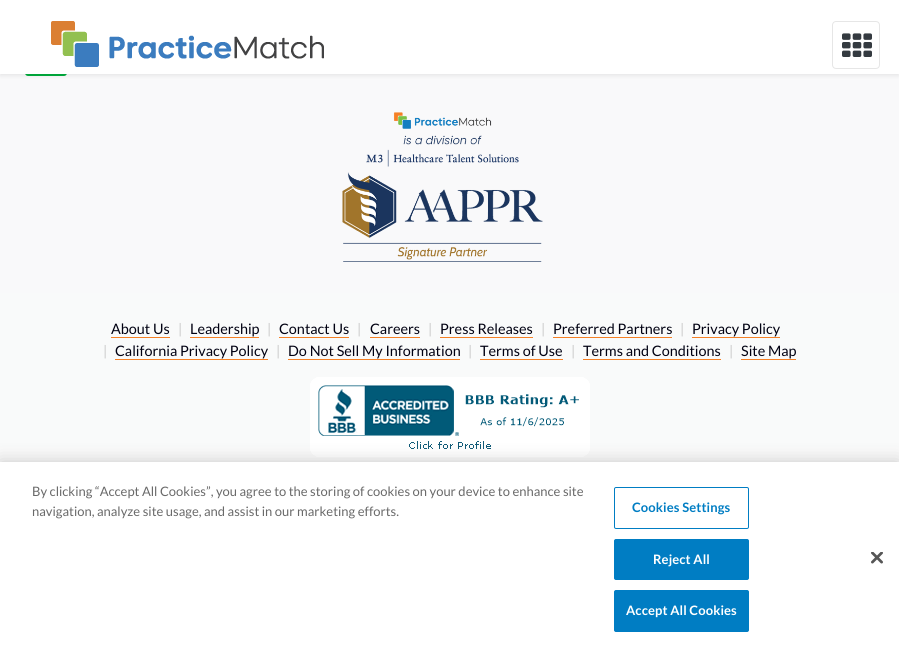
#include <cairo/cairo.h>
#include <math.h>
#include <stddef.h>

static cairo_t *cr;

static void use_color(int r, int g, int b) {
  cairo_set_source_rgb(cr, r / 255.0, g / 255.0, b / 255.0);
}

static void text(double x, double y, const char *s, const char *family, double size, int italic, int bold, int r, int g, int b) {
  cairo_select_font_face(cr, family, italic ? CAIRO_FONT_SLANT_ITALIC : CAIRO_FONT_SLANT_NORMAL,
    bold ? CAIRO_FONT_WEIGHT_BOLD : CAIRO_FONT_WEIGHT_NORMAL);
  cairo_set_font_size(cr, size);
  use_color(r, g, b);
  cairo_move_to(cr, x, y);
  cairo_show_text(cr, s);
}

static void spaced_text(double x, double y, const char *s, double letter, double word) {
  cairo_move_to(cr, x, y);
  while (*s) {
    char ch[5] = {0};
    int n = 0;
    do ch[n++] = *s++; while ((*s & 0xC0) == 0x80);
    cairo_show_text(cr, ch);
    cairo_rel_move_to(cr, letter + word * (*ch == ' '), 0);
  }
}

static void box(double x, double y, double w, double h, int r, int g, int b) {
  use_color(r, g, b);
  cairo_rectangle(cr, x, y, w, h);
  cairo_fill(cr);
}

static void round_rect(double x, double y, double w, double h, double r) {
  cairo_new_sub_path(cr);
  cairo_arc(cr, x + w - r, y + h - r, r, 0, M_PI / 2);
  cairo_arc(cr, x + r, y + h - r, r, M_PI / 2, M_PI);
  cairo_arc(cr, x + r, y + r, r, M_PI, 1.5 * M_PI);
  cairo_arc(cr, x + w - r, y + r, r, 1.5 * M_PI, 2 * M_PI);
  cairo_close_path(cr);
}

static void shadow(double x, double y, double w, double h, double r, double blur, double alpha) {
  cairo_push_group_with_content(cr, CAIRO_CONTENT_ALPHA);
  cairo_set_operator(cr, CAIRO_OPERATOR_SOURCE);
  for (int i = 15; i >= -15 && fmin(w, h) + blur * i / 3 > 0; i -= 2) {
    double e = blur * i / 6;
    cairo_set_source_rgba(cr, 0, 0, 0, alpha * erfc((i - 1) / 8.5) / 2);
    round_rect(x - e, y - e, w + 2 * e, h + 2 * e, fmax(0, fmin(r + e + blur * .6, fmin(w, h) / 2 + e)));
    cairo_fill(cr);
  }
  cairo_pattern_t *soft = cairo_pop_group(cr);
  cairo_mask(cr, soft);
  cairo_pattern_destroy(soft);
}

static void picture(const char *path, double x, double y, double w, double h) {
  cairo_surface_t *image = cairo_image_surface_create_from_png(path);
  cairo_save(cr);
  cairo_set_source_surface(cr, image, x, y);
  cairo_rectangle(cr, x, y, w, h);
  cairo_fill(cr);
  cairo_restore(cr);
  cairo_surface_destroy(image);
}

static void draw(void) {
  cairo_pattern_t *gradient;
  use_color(255, 255, 255);
  cairo_paint(cr);
  gradient = cairo_pattern_create_linear(450, 652, 450, -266);
  cairo_pattern_add_color_stop_rgba(gradient, 0, 0.98, 0.98, 0.98, 1);
  cairo_pattern_add_color_stop_rgba(gradient, 1, 0.973, 0.976, 0.98, 1);
  cairo_set_source(cr, gradient);
  cairo_pattern_destroy(gradient);
  cairo_rectangle(cr, 0, 74, 899, 388);
  cairo_fill(cr);
  use_color(0, 172, 60);
  round_rect(25, 34, 42, 42, 3);
  cairo_fill(cr);
  use_color(0, 0, 0);
  shadow(0, 2, 899, 74, 0, 2, 0.07);
  box(0, 0, 899, 74, 255, 255, 255);
  picture("img_01.png", 51, 21, 273, 46);
  round_rect(832.5, 21.5, 47, 47, 3.5);
  use_color(230, 230, 230);
  cairo_set_line_width(cr, 1);
  cairo_stroke(cr);
  picture("img_02.png", 842, 33, 30, 24);
  picture("img_03.png", 342, 112, 201, 150);
  box(111, 337, 59, 1, 245, 128, 37);
  box(190, 337, 69, 1, 245, 128, 37);
  box(279, 337, 70, 1, 245, 128, 37);
  box(370, 337, 50, 1, 245, 128, 37);
  box(440, 337, 93, 1, 245, 128, 37);
  box(553, 337, 119, 1, 245, 128, 37);
  box(692, 337, 88, 1, 245, 128, 37);
  box(115, 359, 153, 1, 245, 128, 37);
  box(288, 359, 172, 1, 245, 128, 37);
  box(480, 359, 83, 1, 245, 128, 37);
  box(583, 359, 138, 1, 245, 128, 37);
  box(741, 359, 55, 1, 245, 128, 37);
  picture("img_04.png", 310, 377, 280, 80);
  use_color(0, 0, 0);
  shadow(0, 462, 899, 190, 0, 9, 0.2);
  box(0, 462, 899, 190, 255, 255, 255);
  round_rect(614.5, 487.5, 134, 41, 1.5);
  use_color(0, 125, 195);
  cairo_stroke(cr);
  round_rect(614.5, 539.5, 134, 40, 1.5);
  cairo_fill_preserve(cr);
  cairo_stroke(cr);
  round_rect(614.5, 590.5, 134, 41, 1.5);
  cairo_fill_preserve(cr);
  cairo_stroke(cr);
  picture("img_05.png", 871, 552, 12, 12);
  text(111, 334, "About Us", "Lato", 14.4, 0, 0, 0, 0, 17);
  text(178, 334, "|", "Lato", 14.4, 0, 0, 204, 204, 204);
  text(190, 334, "Leadership", "Lato", 14.4, 0, 0, 0, 0, 17);
  text(267, 334, "|", "Lato", 14.4, 0, 0, 204, 204, 204);
  text(279, 334, "Contact Us", "Lato", 14.4, 0, 0, 0, 0, 17);
  text(357, 334, "|", "Lato", 14.4, 0, 0, 204, 204, 204);
  text(370, 334, "Careers", "Lato", 14.4, 0, 0, 0, 0, 17);
  text(428, 334, "|", "Lato", 14.4, 0, 0, 204, 204, 204);
  text(440, 334, "Press Releases", "Lato", 14.4, 0, 0, 0, 0, 17);
  text(541, 334, "|", "Lato", 14.4, 0, 0, 204, 204, 204);
  text(553, 334, "Preferred Partners", "Lato", 14.4, 0, 0, 0, 0, 17);
  text(680, 334, "|", "Lato", 14.4, 0, 0, 204, 204, 204);
  text(692, 334, "Privacy Policy", "Lato", 14.4, 0, 0, 0, 0, 17);
  text(103, 356, "|", "Lato", 14.4, 0, 0, 204, 204, 204);
  text(115, 356, "California Privacy Policy", "Lato", 14.4, 0, 0, 0, 0, 17);
  text(276, 356, "|", "Lato", 14.4, 0, 0, 204, 204, 204);
  text(288, 356, "Do Not Sell My Information", "Lato", 14.4, 0, 0, 0, 0, 17);
  text(468, 356, "|", "Lato", 14.4, 0, 0, 204, 204, 204);
  text(480, 356, "Terms of Use", "Lato", 14.4, 0, 0, 0, 0, 17);
  text(571, 356, "|", "Lato", 14.4, 0, 0, 204, 204, 204);
  text(583, 356, "Terms and Conditions", "Lato", 14.4, 0, 0, 0, 0, 17);
  text(729, 356, "|", "Lato", 14.4, 0, 0, 204, 204, 204);
  text(741, 356, "Site Map", "Lato", 14.4, 0, 0, 0, 0, 17);
  text(32, 496, "By clicking “Accept All Cookies”, you agree to the storing of cookies on your device to enhance site", "Lato", 13, 0, 0, 105, 105, 105);
  text(32, 516, "navigation, analyze site usage, and assist in our marketing efforts.", "Lato", 13, 0, 0, 105, 105, 105);
  cairo_select_font_face(cr, "Lato", CAIRO_FONT_SLANT_NORMAL, CAIRO_FONT_WEIGHT_BOLD);
  use_color(0, 125, 195);
  spaced_text(632, 512, "Cookies Settings", 0.1, 0);
  use_color(255, 255, 255);
  spaced_text(653, 564, "Reject All", 0.1, 0);
  spaced_text(626, 615, "Accept All Cookies", 0.1, 0);
}

int main(void) {
  cairo_surface_t *surface = cairo_image_surface_create(CAIRO_FORMAT_RGB24, 899, 652);
  cr = cairo_create(surface);
  cairo_font_options_t *options = cairo_font_options_create();
  cairo_font_options_set_hint_metrics(options, CAIRO_HINT_METRICS_OFF);
  cairo_font_options_set_hint_style(options, CAIRO_HINT_STYLE_NONE);
  cairo_set_font_options(cr, options);
  cairo_set_miter_limit(cr, 4);
  draw();
  cairo_surface_write_to_png(surface, "out.png");
  cairo_font_options_destroy(options);
  cairo_destroy(cr);
  cairo_surface_destroy(surface);
  return 0;
}
